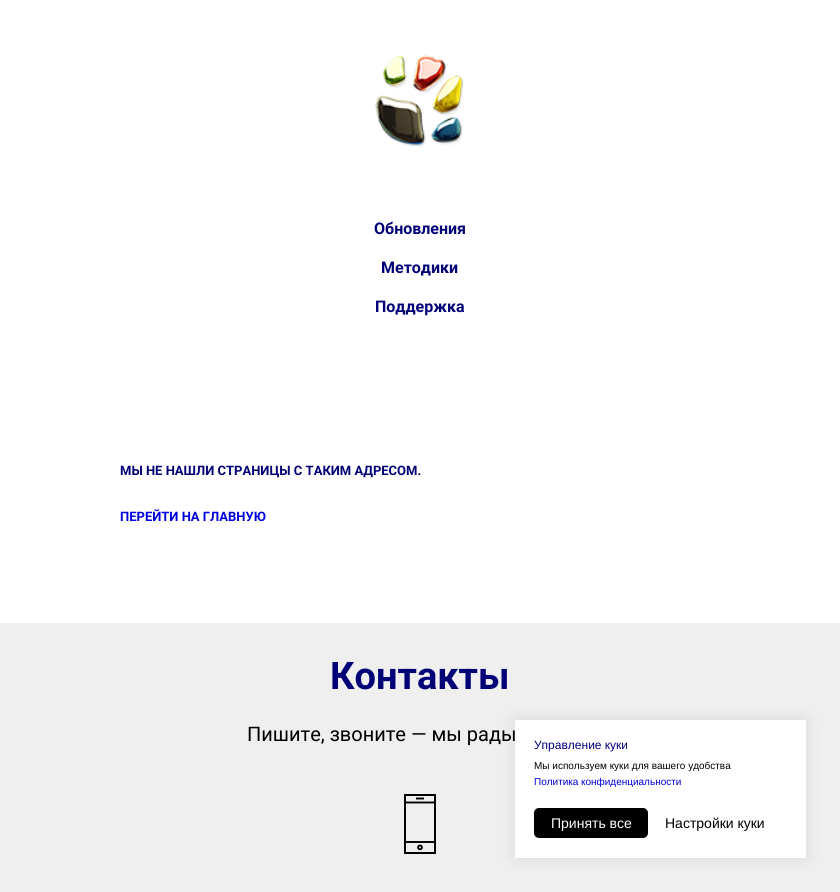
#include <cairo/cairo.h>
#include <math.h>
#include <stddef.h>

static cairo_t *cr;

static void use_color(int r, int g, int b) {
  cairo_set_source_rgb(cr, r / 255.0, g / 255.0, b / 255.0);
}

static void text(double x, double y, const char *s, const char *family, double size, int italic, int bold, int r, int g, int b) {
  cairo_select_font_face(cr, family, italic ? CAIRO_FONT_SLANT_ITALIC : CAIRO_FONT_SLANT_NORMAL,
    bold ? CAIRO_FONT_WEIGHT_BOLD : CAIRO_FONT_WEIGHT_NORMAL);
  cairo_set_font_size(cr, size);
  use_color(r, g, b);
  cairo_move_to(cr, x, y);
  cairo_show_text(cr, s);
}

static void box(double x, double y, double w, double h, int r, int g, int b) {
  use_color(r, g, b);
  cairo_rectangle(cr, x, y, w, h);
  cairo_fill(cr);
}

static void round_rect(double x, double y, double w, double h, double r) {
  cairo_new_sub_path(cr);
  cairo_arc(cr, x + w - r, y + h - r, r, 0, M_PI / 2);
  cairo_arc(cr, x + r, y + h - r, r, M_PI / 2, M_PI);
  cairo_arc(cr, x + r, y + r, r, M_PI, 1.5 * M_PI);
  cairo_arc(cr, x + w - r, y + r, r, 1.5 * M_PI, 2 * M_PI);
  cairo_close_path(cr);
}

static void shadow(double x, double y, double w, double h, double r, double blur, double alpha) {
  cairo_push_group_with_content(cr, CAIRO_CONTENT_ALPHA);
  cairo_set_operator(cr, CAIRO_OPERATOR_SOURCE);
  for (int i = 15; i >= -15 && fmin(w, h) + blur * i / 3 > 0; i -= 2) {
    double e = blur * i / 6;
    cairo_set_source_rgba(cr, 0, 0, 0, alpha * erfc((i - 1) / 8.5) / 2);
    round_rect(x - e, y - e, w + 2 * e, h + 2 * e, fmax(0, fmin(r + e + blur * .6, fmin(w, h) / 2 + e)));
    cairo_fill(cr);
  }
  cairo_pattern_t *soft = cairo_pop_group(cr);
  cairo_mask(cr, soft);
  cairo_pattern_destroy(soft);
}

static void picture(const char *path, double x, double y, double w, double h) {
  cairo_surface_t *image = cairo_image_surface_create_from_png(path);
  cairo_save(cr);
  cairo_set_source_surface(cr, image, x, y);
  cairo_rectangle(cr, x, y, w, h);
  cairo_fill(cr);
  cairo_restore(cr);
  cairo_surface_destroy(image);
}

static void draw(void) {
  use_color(255, 255, 255);
  cairo_paint(cr);
  picture("img_01.png", 375, 55, 88, 92);
  box(0, 623, 840, 269, 239, 239, 239);
  use_color(0, 0, 0);
  shadow(515, 720, 291, 138, 0, 7.5, 0.1);
  cairo_rectangle(cr, 405, 795, 30, 58);
  use_color(0, 0, 0);
  cairo_stroke(cr);
  cairo_new_path(cr);
  cairo_move_to(cr, 416, 798.5);
  cairo_line_to(cr, 424, 798.5);
  cairo_set_line_width(cr, 1.9);
  cairo_stroke(cr);
  cairo_new_path(cr);
  cairo_move_to(cr, 405, 802.5);
  cairo_line_to(cr, 435, 802.5);
  cairo_stroke(cr);
  cairo_set_source_rgba(cr, 0, 0, 0, 0.95);
  cairo_rectangle(cr, 405, 841, 30, 2);
  cairo_fill(cr);
  cairo_arc(cr, 420, 847.4, 1.9, 0, 2 * M_PI);
  use_color(0, 0, 0);
  cairo_stroke(cr);
  text(120, 475, "МЫ НЕ НАШЛИ СТРАНИЦЫ С ТАКИМ АДРЕСОМ.", "Roboto", 13, 0, 1, 0, 0, 119);
  text(120, 521, "ПЕРЕЙТИ НА ГЛАВНУЮ", "Roboto", 13, 0, 1, 0, 0, 221);
  text(374, 234, "Обновления", "Roboto", 16, 0, 1, 0, 0, 119);
  text(381, 273, "Методики", "Roboto", 16, 0, 1, 0, 0, 119);
  text(375, 312, "Поддержка", "Roboto", 16, 0, 1, 0, 0, 119);
  text(330, 689, "Контакты", "Roboto", 38, 0, 1, 0, 0, 119);
  text(247, 741, "Пишите, звоните — мы рады", "Roboto", 20, 0, 0, 0, 0, 0);
  box(515, 720, 291, 138, 255, 255, 255);
  text(665, 828, "Настройки куки", "Liberation Sans", 14, 0, 0, 0, 0, 0);
  round_rect(534, 808, 114, 30, 5);
  cairo_fill(cr);
  text(551, 828, "Принять все", "Liberation Sans", 14, 0, 0, 255, 255, 255);
  text(534, 785, "Политика конфиденциальности", "Liberation Sans", 10, 0, 0, 0, 0, 221);
  text(534, 769, "Мы используем куки для вашего удобства", "Liberation Sans", 10, 0, 0, 0, 0, 0);
  text(534, 749, "Управление куки", "Liberation Sans", 12, 0, 0, 0, 0, 119);
}

int main(void) {
  cairo_surface_t *surface = cairo_image_surface_create(CAIRO_FORMAT_RGB24, 840, 892);
  cr = cairo_create(surface);
  cairo_font_options_t *options = cairo_font_options_create();
  cairo_font_options_set_hint_metrics(options, CAIRO_HINT_METRICS_OFF);
  cairo_font_options_set_hint_style(options, CAIRO_HINT_STYLE_NONE);
  cairo_set_font_options(cr, options);
  cairo_set_miter_limit(cr, 4);
  draw();
  cairo_surface_write_to_png(surface, "out.png");
  cairo_font_options_destroy(options);
  cairo_destroy(cr);
  cairo_surface_destroy(surface);
  return 0;
}
